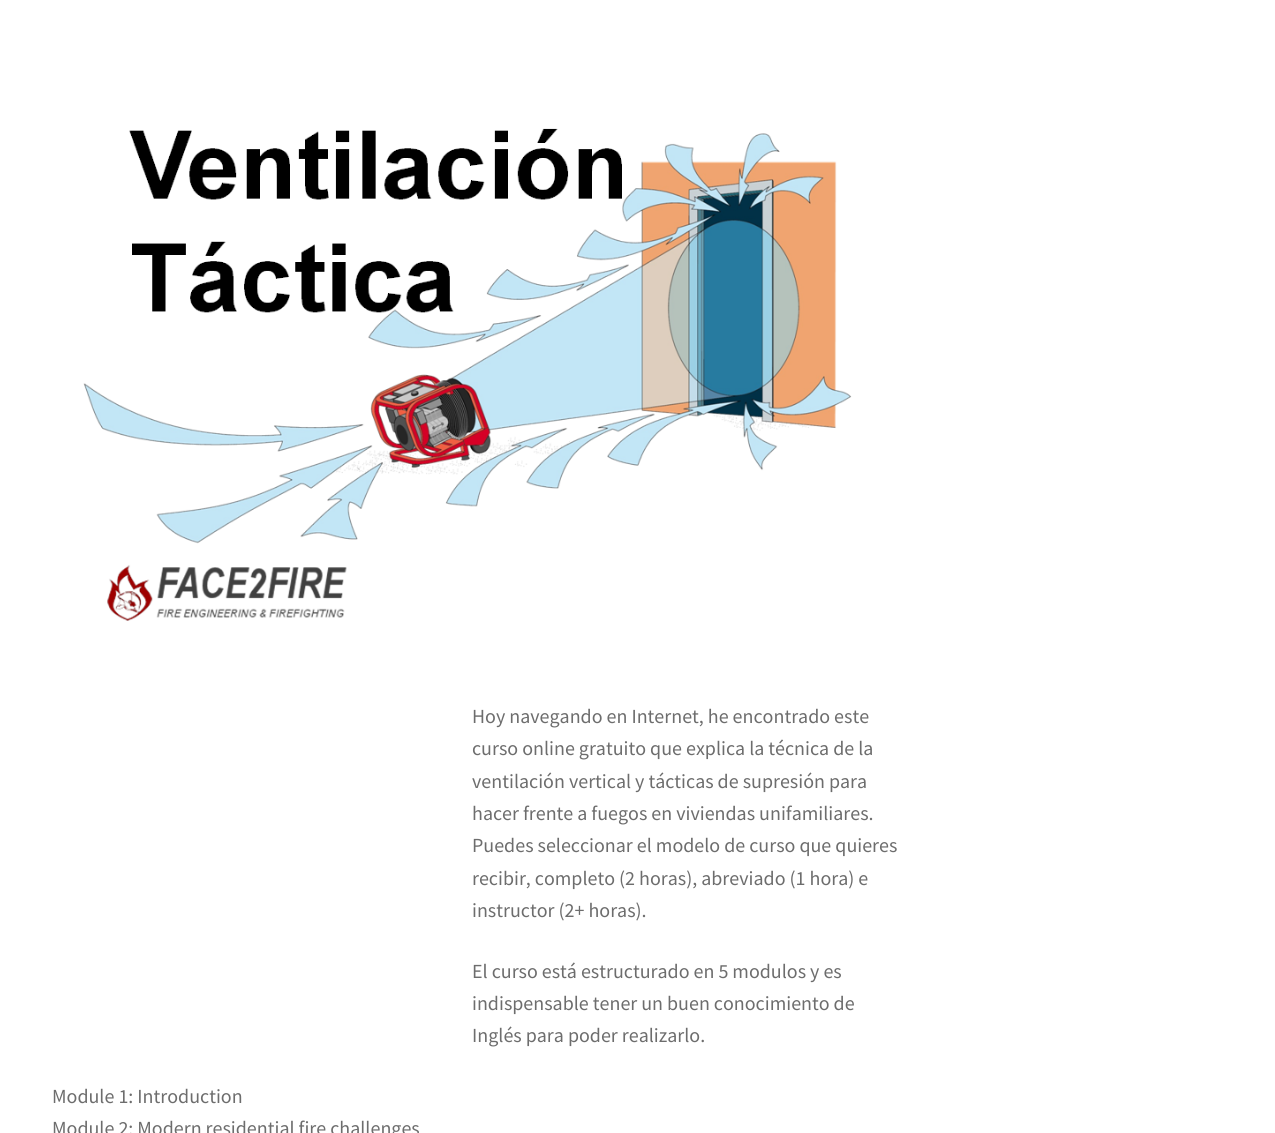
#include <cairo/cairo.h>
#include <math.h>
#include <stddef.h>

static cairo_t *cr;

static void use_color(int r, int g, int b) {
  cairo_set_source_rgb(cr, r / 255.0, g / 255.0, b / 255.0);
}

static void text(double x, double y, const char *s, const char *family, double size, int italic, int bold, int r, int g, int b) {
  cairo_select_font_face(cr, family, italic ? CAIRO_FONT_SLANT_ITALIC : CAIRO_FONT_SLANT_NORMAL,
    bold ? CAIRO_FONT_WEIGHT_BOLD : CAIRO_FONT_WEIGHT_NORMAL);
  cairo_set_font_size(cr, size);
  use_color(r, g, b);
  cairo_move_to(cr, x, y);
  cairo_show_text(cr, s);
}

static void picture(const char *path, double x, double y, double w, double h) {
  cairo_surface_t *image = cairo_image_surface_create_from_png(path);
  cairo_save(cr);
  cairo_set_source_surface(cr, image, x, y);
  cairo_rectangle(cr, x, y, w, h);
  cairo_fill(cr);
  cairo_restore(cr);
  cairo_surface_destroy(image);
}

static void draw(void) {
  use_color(255, 255, 255);
  cairo_paint(cr);
  picture("img_01.png", 83, 128, 769, 493);
  text(472, 723, "Hoy navegando en Internet, he encontrado este", "Source Sans Pro", 20, 0, 0, 109, 109, 109);
  text(472, 755, "curso online gratuito que explica la técnica de la", "Source Sans Pro", 20, 0, 0, 109, 109, 109);
  text(472, 788, "ventilación vertical y tácticas de supresión para", "Source Sans Pro", 20, 0, 0, 109, 109, 109);
  text(472, 820, "hacer frente a fuegos en viviendas unifamiliares.", "Source Sans Pro", 20, 0, 0, 109, 109, 109);
  text(472, 852, "Puedes seleccionar el modelo de curso que quieres", "Source Sans Pro", 20, 0, 0, 109, 109, 109);
  text(472, 885, "recibir, completo (2 horas), abreviado (1 hora) e", "Source Sans Pro", 20, 0, 0, 109, 109, 109);
  text(472, 917, "instructor (2+ horas).", "Source Sans Pro", 20, 0, 0, 109, 109, 109);
  text(472, 978, "El curso está estructurado en 5 modulos y es", "Source Sans Pro", 20, 0, 0, 109, 109, 109);
  text(472, 1010, "indispensable tener un buen conocimiento de", "Source Sans Pro", 20, 0, 0, 109, 109, 109);
  text(472, 1042, "Inglés para poder realizarlo.", "Source Sans Pro", 20, 0, 0, 109, 109, 109);
  text(52, 1103, "Module 1: Introduction", "Source Sans Pro", 20, 0, 0, 109, 109, 109);
  text(52, 1135, "Module 2: Modern residential fire challenges", "Source Sans Pro", 20, 0, 0, 109, 109, 109);
}

int main(void) {
  cairo_surface_t *surface = cairo_image_surface_create(CAIRO_FORMAT_RGB24, 1275, 1133);
  cr = cairo_create(surface);
  cairo_font_options_t *options = cairo_font_options_create();
  cairo_font_options_set_hint_metrics(options, CAIRO_HINT_METRICS_OFF);
  cairo_font_options_set_hint_style(options, CAIRO_HINT_STYLE_NONE);
  cairo_set_font_options(cr, options);
  cairo_set_miter_limit(cr, 4);
  draw();
  cairo_surface_write_to_png(surface, "out.png");
  cairo_font_options_destroy(options);
  cairo_destroy(cr);
  cairo_surface_destroy(surface);
  return 0;
}
